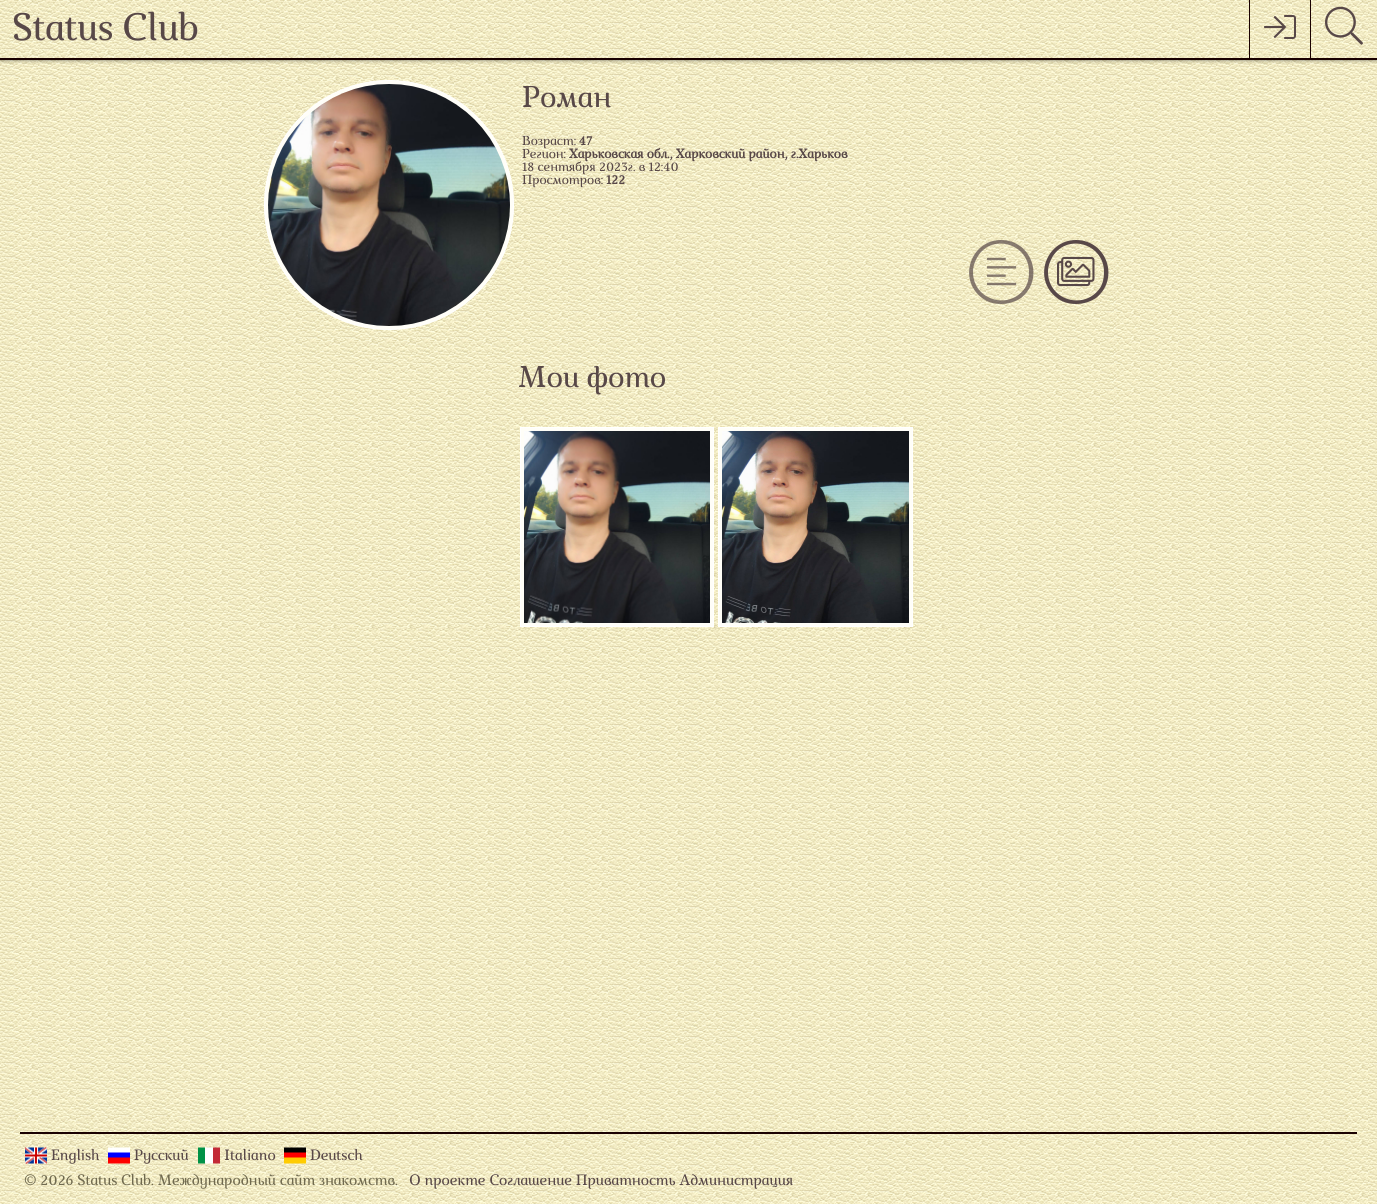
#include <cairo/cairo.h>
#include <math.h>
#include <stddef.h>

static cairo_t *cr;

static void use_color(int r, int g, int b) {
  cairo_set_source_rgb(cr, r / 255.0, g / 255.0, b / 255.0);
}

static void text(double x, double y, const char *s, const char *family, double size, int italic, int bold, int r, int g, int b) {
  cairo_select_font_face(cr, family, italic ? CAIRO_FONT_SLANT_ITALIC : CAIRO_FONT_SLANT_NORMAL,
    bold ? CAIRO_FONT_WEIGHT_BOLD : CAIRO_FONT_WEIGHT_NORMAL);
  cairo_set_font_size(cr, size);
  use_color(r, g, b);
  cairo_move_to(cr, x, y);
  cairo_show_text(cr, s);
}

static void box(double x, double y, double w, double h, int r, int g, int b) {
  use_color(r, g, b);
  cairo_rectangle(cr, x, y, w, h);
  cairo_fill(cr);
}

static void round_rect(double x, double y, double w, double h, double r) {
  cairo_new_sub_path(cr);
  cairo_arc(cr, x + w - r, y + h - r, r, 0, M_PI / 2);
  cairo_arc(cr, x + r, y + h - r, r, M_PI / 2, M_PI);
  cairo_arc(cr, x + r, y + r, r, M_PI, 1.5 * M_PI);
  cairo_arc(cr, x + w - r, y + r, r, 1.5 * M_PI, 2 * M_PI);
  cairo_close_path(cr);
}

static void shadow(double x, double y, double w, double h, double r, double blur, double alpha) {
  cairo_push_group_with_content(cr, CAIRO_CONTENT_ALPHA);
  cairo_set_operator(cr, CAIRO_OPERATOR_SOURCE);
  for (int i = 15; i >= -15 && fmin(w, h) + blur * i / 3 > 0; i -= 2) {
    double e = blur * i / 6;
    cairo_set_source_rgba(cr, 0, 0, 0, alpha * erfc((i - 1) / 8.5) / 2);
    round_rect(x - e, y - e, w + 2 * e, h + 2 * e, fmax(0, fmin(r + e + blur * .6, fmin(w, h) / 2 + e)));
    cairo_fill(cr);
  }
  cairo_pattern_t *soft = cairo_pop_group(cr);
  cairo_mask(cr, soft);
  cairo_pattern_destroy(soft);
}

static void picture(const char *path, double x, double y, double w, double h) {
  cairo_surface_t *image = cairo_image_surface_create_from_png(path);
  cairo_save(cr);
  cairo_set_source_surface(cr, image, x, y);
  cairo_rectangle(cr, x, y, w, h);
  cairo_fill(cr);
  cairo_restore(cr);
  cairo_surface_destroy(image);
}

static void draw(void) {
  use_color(255, 255, 255);
  cairo_paint(cr);
  picture("img_01.png", 0, 0, 1377, 1116);
  cairo_save(cr);
  cairo_rectangle(cr, 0, 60, 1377, 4);
  cairo_clip(cr);
  use_color(0, 0, 0);
  shadow(0, 0, 1377, 60, 0, 2, 0.6);
  cairo_restore(cr);
  box(0, 58, 1377, 2, 26, 1, 1);
  box(1249, 0, 1, 58, 26, 1, 1);
  picture("img_02.png", 1264, 15, 32, 24);
  box(1310, 0, 1, 58, 26, 1, 1);
  picture("img_03.png", 1325, 6, 38, 39);
  picture("img_04.png", 264, 80, 850, 549);
  use_color(255, 254, 248);
  cairo_arc(cr, 389, 205, 124.5, 0, 2 * M_PI);
  cairo_fill_preserve(cr);
  use_color(255, 255, 255);
  cairo_set_line_width(cr, 1);
  cairo_stroke(cr);
  picture("img_05.png", 268, 84, 242, 242);
  cairo_set_source_rgba(cr, 0.345, 0.282, 0.282, 0.7);
  cairo_new_path(cr);
  cairo_move_to(cr, 1001, 240);
  cairo_curve_to(cr, 971, 240, 957, 279, 982, 298);
  cairo_curve_to(cr, 987, 302, 994, 304, 1001, 304);
  cairo_curve_to(cr, 1008, 304, 1015, 302, 1021, 298);
  cairo_curve_to(cr, 1045, 279, 1032, 240, 1001, 240);
  cairo_close_path(cr);
  cairo_move_to(cr, 1029, 272);
  cairo_curve_to(cr, 1029, 278, 1028, 283, 1025, 288);
  cairo_curve_to(cr, 1009, 311, 973, 300, 973, 272);
  cairo_curve_to(cr, 973, 266, 975, 261, 978, 256);
  cairo_curve_to(cr, 993, 233, 1029, 244, 1029, 272);
  cairo_close_path(cr);
  cairo_fill(cr);
  picture("img_06.png", 987, 257, 30, 29);
  use_color(88, 72, 72);
  cairo_new_path(cr);
  cairo_move_to(cr, 1076, 240);
  cairo_curve_to(cr, 1046, 240, 1032, 279, 1057, 298);
  cairo_curve_to(cr, 1062, 302, 1069, 304, 1076, 304);
  cairo_curve_to(cr, 1083, 304, 1090, 302, 1096, 298);
  cairo_curve_to(cr, 1120, 279, 1107, 240, 1076, 240);
  cairo_close_path(cr);
  cairo_move_to(cr, 1104, 272);
  cairo_curve_to(cr, 1104, 278, 1103, 283, 1100, 288);
  cairo_curve_to(cr, 1084, 311, 1048, 300, 1048, 272);
  cairo_curve_to(cr, 1048, 266, 1050, 261, 1053, 256);
  cairo_curve_to(cr, 1068, 233, 1104, 244, 1104, 272);
  cairo_close_path(cr);
  cairo_fill(cr);
  picture("img_07.png", 1057, 256, 38, 31);
  use_color(255, 254, 248);
  cairo_rectangle(cr, 520.5, 427.5, 193, 199);
  cairo_fill_preserve(cr);
  use_color(255, 255, 255);
  cairo_stroke(cr);
  picture("img_08.png", 524, 431, 186, 192);
  use_color(255, 254, 248);
  cairo_rectangle(cr, 718.5, 427.5, 194, 199);
  cairo_fill_preserve(cr);
  use_color(255, 255, 255);
  cairo_stroke(cr);
  picture("img_09.png", 722, 431, 187, 192);
  picture("img_10.png", 0, 1116, 1377, 88);
  box(20, 1132, 1337, 2, 26, 1, 1);
  picture("img_11.png", 25, 1147, 22, 17);
  picture("img_12.png", 108, 1147, 22, 17);
  picture("img_13.png", 198, 1147, 22, 17);
  picture("img_14.png", 284, 1147, 22, 17);
  text(12, 40, "Status Club", "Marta", 38, 1, 0, 88, 72, 72);
  text(522, 107, "Роман", "Marta", 30, 1, 0, 88, 72, 72);
  text(522, 145, "Возраст:", "Marta", 13, 1, 0, 88, 72, 72);
  text(579, 145, "47", "Marta", 13, 1, 1, 88, 72, 72);
  text(522, 158, "Регион:", "Marta", 13, 1, 0, 88, 72, 72);
  text(569, 158, "Харьковская обл., Харковский район, г.Харьков", "Marta", 13, 1, 1, 88, 72, 72);
  text(522, 171, "18 сентября 2023г. в 12:40", "Marta", 13, 1, 0, 88, 72, 72);
  text(522, 184, "Просмотров:", "Marta", 13, 1, 0, 88, 72, 72);
  text(606, 184, "122", "Marta", 13, 1, 1, 88, 72, 72);
  text(518, 387, "Мои фото", "Marta", 30, 1, 0, 88, 72, 72);
  text(51, 1160, "English", "Marta", 15, 1, 0, 88, 72, 72);
  text(134, 1160, "Русский", "Marta", 15, 1, 0, 88, 72, 72);
  text(224, 1160, "Italiano", "Marta", 15, 1, 0, 88, 72, 72);
  text(310, 1160, "Deutsch", "Marta", 15, 1, 0, 88, 72, 72);
  text(24, 1185, "© 2026 Status Club. Международный сайт знакомств.", "Marta", 15, 1, 0, 112, 106, 79);
  text(409, 1185, "О проекте Соглашение Приватность Администрация", "Marta", 15, 1, 0, 88, 72, 72);
}

int main(void) {
  cairo_surface_t *surface = cairo_image_surface_create(CAIRO_FORMAT_RGB24, 1377, 1204);
  cr = cairo_create(surface);
  cairo_font_options_t *options = cairo_font_options_create();
  cairo_font_options_set_hint_metrics(options, CAIRO_HINT_METRICS_OFF);
  cairo_font_options_set_hint_style(options, CAIRO_HINT_STYLE_NONE);
  cairo_set_font_options(cr, options);
  cairo_set_miter_limit(cr, 4);
  draw();
  cairo_surface_write_to_png(surface, "out.png");
  cairo_font_options_destroy(options);
  cairo_destroy(cr);
  cairo_surface_destroy(surface);
  return 0;
}
